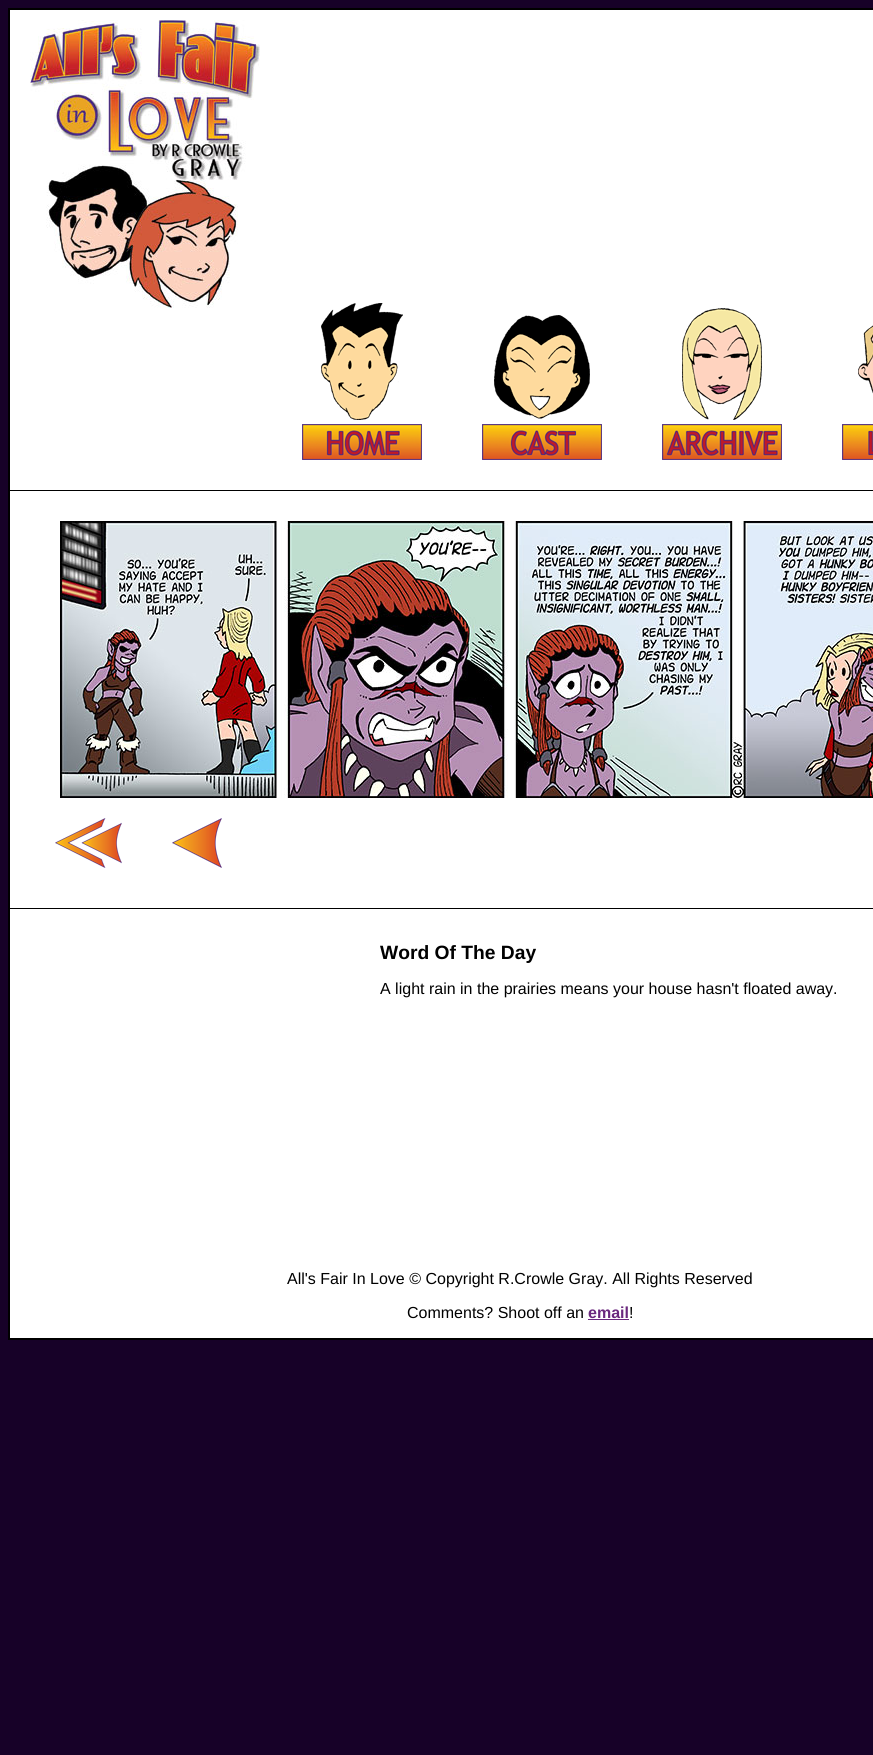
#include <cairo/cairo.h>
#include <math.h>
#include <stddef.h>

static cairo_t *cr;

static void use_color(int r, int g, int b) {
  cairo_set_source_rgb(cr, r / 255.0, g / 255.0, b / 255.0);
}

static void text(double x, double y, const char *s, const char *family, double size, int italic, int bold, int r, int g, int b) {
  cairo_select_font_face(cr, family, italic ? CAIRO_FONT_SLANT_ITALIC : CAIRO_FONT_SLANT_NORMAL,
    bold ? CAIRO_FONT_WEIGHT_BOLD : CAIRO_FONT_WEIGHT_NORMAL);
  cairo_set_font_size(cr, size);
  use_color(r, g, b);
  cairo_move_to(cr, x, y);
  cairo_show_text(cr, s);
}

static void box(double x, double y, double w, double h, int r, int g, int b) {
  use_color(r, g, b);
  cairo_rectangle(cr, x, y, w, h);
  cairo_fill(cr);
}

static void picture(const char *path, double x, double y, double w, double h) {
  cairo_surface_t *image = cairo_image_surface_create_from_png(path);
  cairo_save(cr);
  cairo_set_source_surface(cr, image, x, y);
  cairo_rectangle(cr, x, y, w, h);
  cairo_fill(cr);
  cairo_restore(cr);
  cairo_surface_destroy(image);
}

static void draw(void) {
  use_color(23, 1, 40);
  cairo_paint(cr);
  use_color(255, 255, 255);
  cairo_rectangle(cr, 9, 9, 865, 1330);
  cairo_fill_preserve(cr);
  use_color(0, 0, 0);
  cairo_stroke(cr);
  picture("img_01.png", 30, 20, 230, 288);
  picture("img_02.png", 302, 303, 120, 157);
  picture("img_03.png", 482, 315, 120, 145);
  picture("img_04.png", 662, 308, 120, 152);
  picture("img_05.png", 842, 325, 31, 135);
  box(10, 490, 863, 1, 0, 0, 0);
  box(10, 908, 863, 1, 0, 0, 0);
  picture("img_06.png", 60, 521, 813, 277);
  picture("img_07.png", 55, 818, 67, 50);
  picture("img_08.png", 172, 818, 50, 50);
  box(588, 1319, 41, 1, 106, 40, 126);
  text(380, 959, "Word Of The Day", "Liberation Sans", 19.25, 0, 1, 0, 0, 0);
  text(380, 994, "A light rain in the prairies means your house hasn't floated away.", "Liberation Sans", 16, 0, 0, 0, 0, 0);
  text(287, 1284, "All's Fair In Love © Copyright R.Crowle Gray. All Rights Reserved", "Liberation Sans", 16, 0, 0, 0, 0, 0);
  text(407, 1318, "Comments? Shoot off an", "Liberation Sans", 16, 0, 0, 0, 0, 0);
  text(588, 1318, "email", "Liberation Sans", 16, 0, 1, 106, 40, 126);
  text(629, 1318, "!", "Liberation Sans", 16, 0, 0, 0, 0, 0);
}

int main(void) {
  cairo_surface_t *surface = cairo_image_surface_create(CAIRO_FORMAT_RGB24, 873, 1755);
  cr = cairo_create(surface);
  cairo_font_options_t *options = cairo_font_options_create();
  cairo_font_options_set_hint_metrics(options, CAIRO_HINT_METRICS_OFF);
  cairo_font_options_set_hint_style(options, CAIRO_HINT_STYLE_NONE);
  cairo_set_font_options(cr, options);
  cairo_set_miter_limit(cr, 4);
  draw();
  cairo_surface_write_to_png(surface, "out.png");
  cairo_font_options_destroy(options);
  cairo_destroy(cr);
  cairo_surface_destroy(surface);
  return 0;
}
